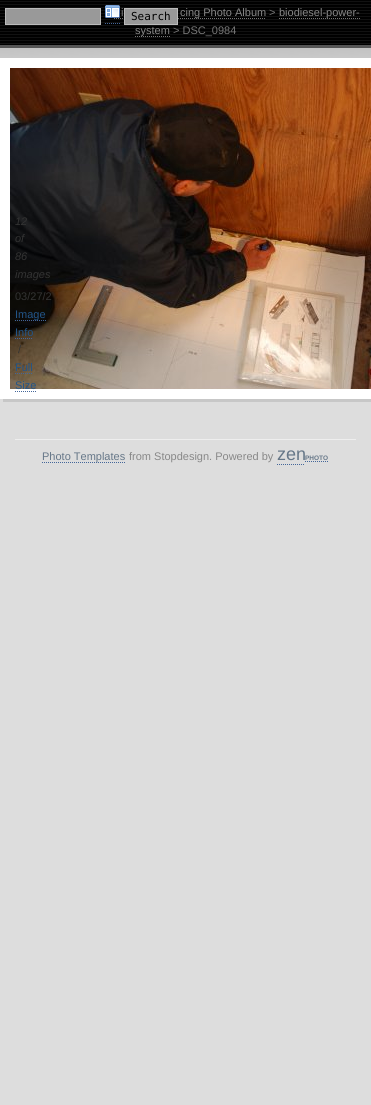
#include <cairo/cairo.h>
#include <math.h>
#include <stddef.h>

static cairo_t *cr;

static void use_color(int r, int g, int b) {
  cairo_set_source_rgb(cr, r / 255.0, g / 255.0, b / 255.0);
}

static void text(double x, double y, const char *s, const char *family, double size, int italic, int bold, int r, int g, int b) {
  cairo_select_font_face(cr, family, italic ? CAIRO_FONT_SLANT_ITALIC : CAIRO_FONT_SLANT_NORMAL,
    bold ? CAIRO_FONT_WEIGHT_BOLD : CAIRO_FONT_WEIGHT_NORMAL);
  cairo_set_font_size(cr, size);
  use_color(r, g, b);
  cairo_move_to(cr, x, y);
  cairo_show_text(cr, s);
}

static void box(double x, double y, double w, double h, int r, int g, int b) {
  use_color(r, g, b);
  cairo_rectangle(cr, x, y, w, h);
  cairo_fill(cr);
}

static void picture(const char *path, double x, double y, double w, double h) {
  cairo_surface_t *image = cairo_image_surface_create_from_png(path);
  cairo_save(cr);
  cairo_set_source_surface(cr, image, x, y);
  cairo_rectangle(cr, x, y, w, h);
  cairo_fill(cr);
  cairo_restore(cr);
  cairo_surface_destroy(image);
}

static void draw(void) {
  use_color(221, 221, 221);
  cairo_paint(cr);
  picture("img_01.png", 0, 48, 371, 10);
  box(0, 0, 371, 1, 0, 0, 0);
  picture("img_02.png", 0, 1, 371, 44);
  box(0, 45, 371, 3, 85, 85, 85);
  cairo_new_path(cr);
  cairo_move_to(cr, 114, 18.5);
  cairo_line_to(cr, 266, 18.5);
  use_color(119, 119, 119);
  cairo_set_line_width(cr, 1);
  cairo_set_dash(cr, (double[]){1, 1}, 2, 0);
  cairo_stroke(cr);
  cairo_new_path(cr);
  cairo_move_to(cr, 279, 18.5);
  cairo_line_to(cr, 360, 18.5);
  cairo_stroke(cr);
  cairo_new_path(cr);
  cairo_move_to(cr, 135, 36.5);
  cairo_line_to(cr, 170, 36.5);
  cairo_stroke(cr);
  use_color(153, 153, 153);
  cairo_rectangle(cr, 5.5, 8.5, 95, 16);
  cairo_fill_preserve(cr);
  use_color(187, 187, 187);
  cairo_set_dash(cr, NULL, 0, 0);
  cairo_stroke(cr);
  picture("img_03.png", 105, 5, 15, 13);
  use_color(153, 153, 153);
  cairo_rectangle(cr, 124.5, 8.5, 53, 16);
  cairo_fill_preserve(cr);
  use_color(187, 187, 187);
  cairo_stroke(cr);
  cairo_new_path(cr);
  cairo_move_to(cr, 105, 23.5);
  cairo_line_to(cr, 121, 23.5);
  use_color(68, 102, 153);
  cairo_set_dash(cr, (double[]){1, 1}, 2, 0);
  cairo_stroke(cr);
  cairo_set_source_rgba(cr, 0, 0, 0, 0.1);
  cairo_rectangle(cr, 3, 399, 368, 3);
  cairo_fill(cr);
  cairo_rectangle(cr, 5, 63, 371, 331);
  use_color(255, 255, 255);
  cairo_set_line_width(cr, 10);
  cairo_set_dash(cr, NULL, 0, 0);
  cairo_stroke(cr);
  picture("img_04.png", 10, 68, 361, 321);
  cairo_new_path(cr);
  cairo_move_to(cr, 15, 320.5);
  cairo_line_to(cr, 46, 320.5);
  cairo_move_to(cr, 15, 338.5);
  cairo_line_to(cr, 33, 338.5);
  use_color(68, 102, 153);
  cairo_set_line_width(cr, 1);
  cairo_set_dash(cr, (double[]){1, 1}, 2, 0);
  cairo_stroke(cr);
  cairo_new_path(cr);
  cairo_move_to(cr, 15, 373.5);
  cairo_line_to(cr, 33, 373.5);
  cairo_move_to(cr, 15, 391.5);
  cairo_line_to(cr, 37, 391.5);
  cairo_stroke(cr);
  box(15, 439, 341, 1, 238, 238, 238);
  cairo_new_path(cr);
  cairo_move_to(cr, 42, 462.5);
  cairo_line_to(cr, 126, 462.5);
  use_color(68, 102, 153);
  cairo_stroke(cr);
  cairo_new_path(cr);
  cairo_move_to(cr, 277, 464.5);
  cairo_line_to(cr, 305, 464.5);
  cairo_move_to(cr, 305, 461.5);
  cairo_line_to(cr, 329, 461.5);
  cairo_stroke(cr);
  text(121, 16, "i", "Liberation Sans", 11, 0, 0, 136, 136, 136);
  text(180, 16, "cing Photo Album", "Liberation Sans", 11, 0, 0, 136, 136, 136);
  text(269, 16, ">", "Liberation Sans", 11, 0, 0, 119, 119, 119);
  text(279, 16, "biodiesel-power-", "Liberation Sans", 11, 0, 0, 136, 136, 136);
  text(135, 34, "system", "Liberation Sans", 11, 0, 0, 136, 136, 136);
  text(173, 34, "> DSC_0984", "Liberation Sans", 11, 0, 0, 119, 119, 119);
  text(131, 20, "Search", "DejaVu Sans Mono", 11, 0, 0, 0, 0, 0);
  text(15, 225, "12", "Liberation Sans", 11, 1, 0, 51, 51, 51);
  text(15, 242, "of", "Liberation Sans", 11, 1, 0, 51, 51, 51);
  text(15, 260, "86", "Liberation Sans", 11, 1, 0, 51, 51, 51);
  text(15, 278, "images", "Liberation Sans", 11, 1, 0, 51, 51, 51);
  text(15, 300, "03/27/2", "Liberation Sans", 11, 0, 0, 51, 51, 51);
  text(15, 318, "Image", "Liberation Sans", 11, 0, 0, 34, 85, 136);
  text(15, 336, "Info", "Liberation Sans", 11, 0, 0, 34, 85, 136);
  text(18, 353, "/", "Liberation Sans", 11, 0, 0, 51, 51, 51);
  text(15, 371, "Full", "Liberation Sans", 11, 0, 0, 34, 85, 136);
  text(15, 389, "Size", "Liberation Sans", 11, 0, 0, 34, 85, 136);
  text(42, 460, "Photo Templates", "Liberation Sans", 11, 0, 0, 102, 119, 136);
  text(129, 460, "from Stopdesign. Powered by", "Liberation Sans", 11, 0, 0, 136, 136, 136);
  text(277, 460, "zen", "Liberation Sans", 18, 0, 0, 102, 119, 136);
  text(305, 460, "PHOTO", "Liberation Sans", 6.5, 0, 1, 102, 119, 136);
}

int main(void) {
  cairo_surface_t *surface = cairo_image_surface_create(CAIRO_FORMAT_RGB24, 371, 1105);
  cr = cairo_create(surface);
  cairo_font_options_t *options = cairo_font_options_create();
  cairo_font_options_set_hint_metrics(options, CAIRO_HINT_METRICS_OFF);
  cairo_font_options_set_hint_style(options, CAIRO_HINT_STYLE_NONE);
  cairo_set_font_options(cr, options);
  cairo_set_miter_limit(cr, 4);
  draw();
  cairo_surface_write_to_png(surface, "out.png");
  cairo_font_options_destroy(options);
  cairo_destroy(cr);
  cairo_surface_destroy(surface);
  return 0;
}
